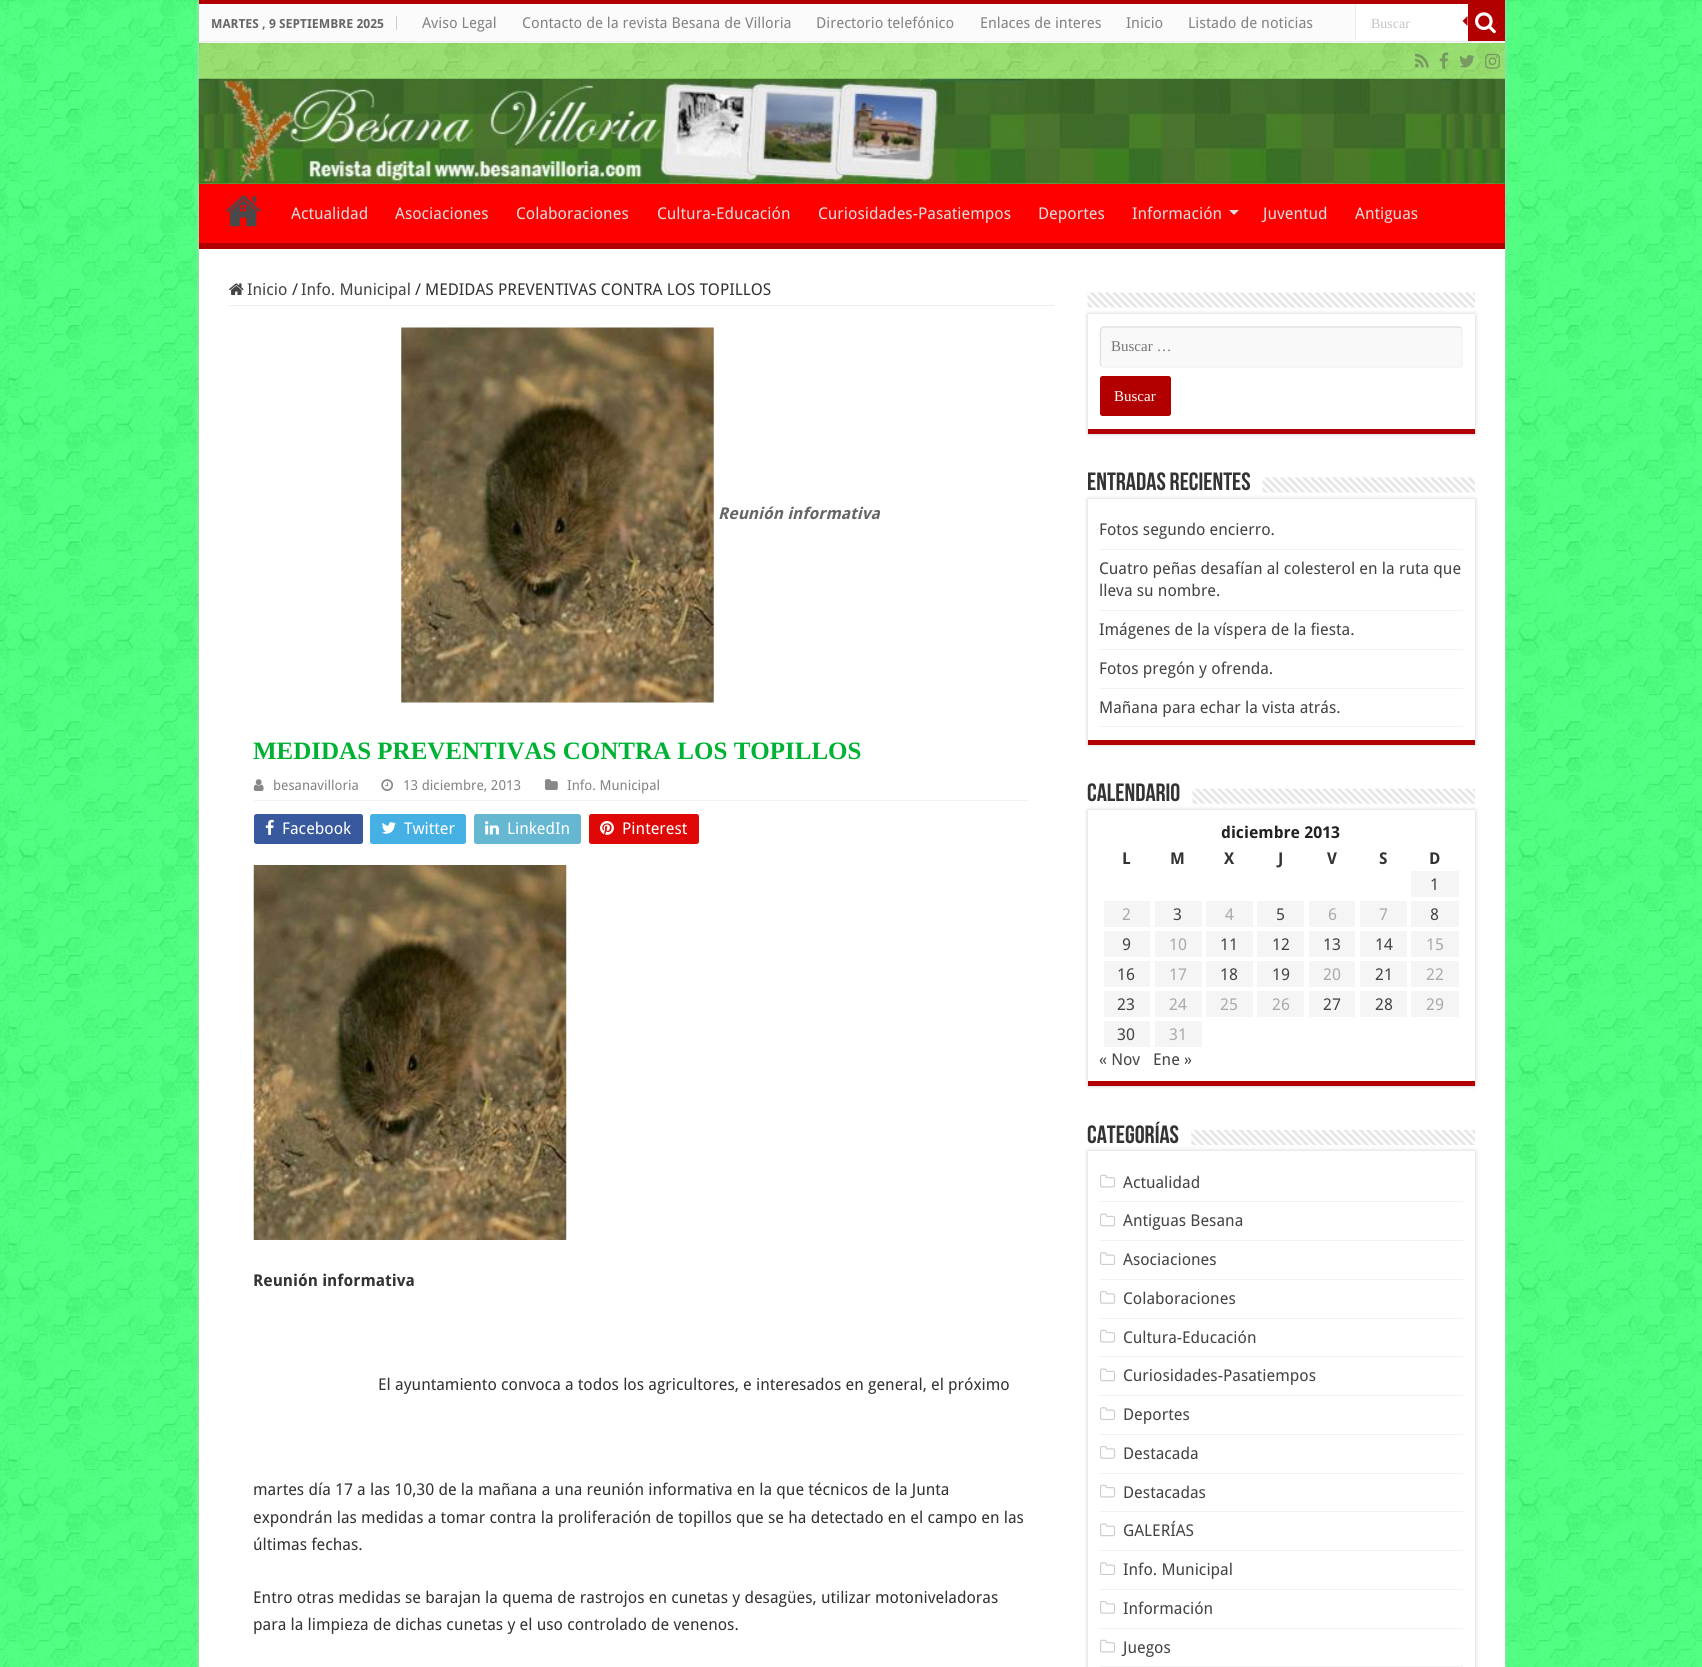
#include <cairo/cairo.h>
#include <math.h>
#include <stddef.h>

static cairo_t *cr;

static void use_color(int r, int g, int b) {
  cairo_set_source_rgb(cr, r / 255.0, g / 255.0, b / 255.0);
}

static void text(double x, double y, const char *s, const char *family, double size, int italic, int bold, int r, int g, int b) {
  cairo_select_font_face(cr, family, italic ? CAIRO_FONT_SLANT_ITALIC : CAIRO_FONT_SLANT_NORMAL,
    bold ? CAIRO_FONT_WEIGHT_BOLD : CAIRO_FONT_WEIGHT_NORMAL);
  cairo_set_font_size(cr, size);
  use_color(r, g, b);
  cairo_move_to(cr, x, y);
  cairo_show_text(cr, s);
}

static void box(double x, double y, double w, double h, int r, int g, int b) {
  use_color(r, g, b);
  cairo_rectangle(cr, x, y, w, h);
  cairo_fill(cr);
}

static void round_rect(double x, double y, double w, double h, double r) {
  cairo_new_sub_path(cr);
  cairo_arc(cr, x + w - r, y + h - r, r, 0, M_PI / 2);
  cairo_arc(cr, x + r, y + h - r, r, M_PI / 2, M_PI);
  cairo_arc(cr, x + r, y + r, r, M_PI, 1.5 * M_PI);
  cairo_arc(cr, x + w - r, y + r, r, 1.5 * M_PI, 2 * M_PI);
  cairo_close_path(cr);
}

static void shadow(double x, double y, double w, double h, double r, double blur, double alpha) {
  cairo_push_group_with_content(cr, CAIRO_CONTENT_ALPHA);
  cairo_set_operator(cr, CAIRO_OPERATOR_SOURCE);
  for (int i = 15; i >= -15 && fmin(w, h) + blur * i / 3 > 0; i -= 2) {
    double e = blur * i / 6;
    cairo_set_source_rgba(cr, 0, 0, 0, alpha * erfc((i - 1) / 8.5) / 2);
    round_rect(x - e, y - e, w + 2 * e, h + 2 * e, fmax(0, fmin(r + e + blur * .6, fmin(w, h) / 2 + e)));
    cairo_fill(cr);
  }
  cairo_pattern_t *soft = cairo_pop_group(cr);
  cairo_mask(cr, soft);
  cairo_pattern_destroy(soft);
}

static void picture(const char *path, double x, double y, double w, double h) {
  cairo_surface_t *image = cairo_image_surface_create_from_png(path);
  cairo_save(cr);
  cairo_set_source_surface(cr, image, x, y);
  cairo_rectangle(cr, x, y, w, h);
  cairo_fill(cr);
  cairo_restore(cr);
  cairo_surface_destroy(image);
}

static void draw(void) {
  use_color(0, 255, 72);
  cairo_paint(cr);
  picture("img_01.png", 0, 0, 1702, 1667);
  use_color(202, 202, 202);
  shadow(199, 0, 1306, 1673, 0, 2, 1);
  box(199, 249, 1306, 1418, 255, 255, 255);
  box(199, 0, 1306, 4, 178, 0, 0);
  box(199, 4, 1306, 39, 251, 251, 251);
  box(199, 41, 1306, 1, 236, 236, 236);
  box(396, 16, 1, 14, 204, 204, 204);
  box(1356, 4, 112, 36, 255, 255, 255);
  box(1355, 4, 1, 36, 236, 236, 236);
  box(1468, 4, 37, 37, 178, 0, 0);
  picture("img_02.png", 1475, 12, 21, 22);
  cairo_new_path(cr);
  cairo_move_to(cr, 1467.5, 16);
  cairo_line_to(cr, 1467.5, 26);
  cairo_line_to(cr, 1462.5, 21);
  cairo_close_path(cr);
  cairo_fill(cr);
  box(199, 43, 1306, 141, 105, 207, 45);
  picture("img_07.png", 198, 42, 1307, 142);
  picture("img_03.png", 1415, 53, 14, 15);
  picture("img_04.png", 1439, 52, 10, 17);
  picture("img_05.png", 1459, 55, 16, 13);
  picture("img_06.png", 1485, 53, 15, 16);
  picture("img_08.png", 198, 78, 1307, 106);
  box(199, 184, 1306, 59, 255, 0, 0);
  box(199, 243, 1306, 6, 178, 0, 0);
  picture("img_09.png", 225, 194, 38, 33);
  use_color(221, 221, 221);
  cairo_new_path(cr);
  cairo_move_to(cr, 1229, 210);
  cairo_line_to(cr, 1239, 210);
  cairo_line_to(cr, 1234, 215);
  cairo_close_path(cr);
  cairo_fill(cr);
  box(229, 305, 825, 1, 238, 238, 238);
  picture("img_10.png", 229, 283, 15, 12);
  picture("img_11.png", 401, 327, 313, 376);
  box(254, 800, 775, 1, 242, 242, 242);
  picture("img_12.png", 253, 779, 11, 12);
  picture("img_13.png", 381, 779, 13, 12);
  picture("img_14.png", 545, 779, 13, 11);
  use_color(57, 89, 159);
  round_rect(254, 814, 109, 30, 2.5);
  cairo_fill(cr);
  picture("img_15.png", 265, 819, 9, 16);
  use_color(69, 176, 227);
  round_rect(370, 814, 96, 30, 2.5);
  cairo_fill(cr);
  picture("img_16.png", 381, 822, 15, 12);
  use_color(101, 183, 210);
  round_rect(474, 814, 107, 30, 2.5);
  cairo_fill(cr);
  picture("img_17.png", 485, 821, 14, 14);
  use_color(224, 7, 7);
  round_rect(589, 814, 110, 30, 2.5);
  cairo_fill(cr);
  picture("img_18.png", 600, 821, 14, 14);
  picture("img_19.png", 253, 865, 314, 375);
  use_color(202, 202, 202);
  shadow(1088, 314, 387, 120, 0, 2, 1);
  picture("img_20.png", 1087, 292, 388, 16);
  box(1088, 314, 387, 115, 255, 255, 255);
  box(1088, 429, 387, 5, 178, 0, 0);
  use_color(249, 249, 249);
  round_rect(1100, 326, 363, 42, 4);
  cairo_fill(cr);
  cairo_new_path(cr);
  cairo_move_to(cr, 1461, 328);
  cairo_curve_to(cr, 1463, 329.5, 1462, 334, 1462, 335.5);
  cairo_line_to(cr, 1462, 358);
  cairo_curve_to(cr, 1462, 360.5, 1463, 367, 1459, 367);
  cairo_line_to(cr, 1103.5, 367);
  cairo_line_to(cr, 1101.5, 366);
  use_color(241, 241, 241);
  cairo_set_line_width(cr, 1.2);
  cairo_stroke(cr);
  cairo_new_path(cr);
  cairo_move_to(cr, 1101.5, 366);
  cairo_curve_to(cr, 1099.5, 364, 1100.5, 359.5, 1100.5, 358);
  cairo_line_to(cr, 1100.5, 335.5);
  cairo_curve_to(cr, 1100.5, 333.5, 1099.5, 327, 1104, 327);
  cairo_line_to(cr, 1459, 327);
  cairo_line_to(cr, 1461, 328);
  use_color(221, 221, 221);
  cairo_stroke(cr);
  use_color(178, 0, 0);
  round_rect(1100, 376, 71, 40, 2.5);
  cairo_fill(cr);
  cairo_save(cr);
  cairo_set_fill_rule(cr, CAIRO_FILL_RULE_EVEN_ODD);
  cairo_new_path(cr);
  cairo_move_to(cr, 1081, 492);
  cairo_line_to(cr, 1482, 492);
  cairo_line_to(cr, 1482, 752);
  cairo_line_to(cr, 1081, 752);
  cairo_close_path(cr);
  cairo_move_to(cr, 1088, 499);
  cairo_line_to(cr, 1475, 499);
  cairo_line_to(cr, 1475, 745);
  cairo_line_to(cr, 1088, 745);
  cairo_close_path(cr);
  cairo_clip(cr);
  use_color(202, 202, 202);
  shadow(1088, 499, 387, 246, 0, 2, 1);
  cairo_restore(cr);
  picture("img_21.png", 1262, 477, 213, 16);
  box(1088, 740, 387, 5, 178, 0, 0);
  box(1100, 549, 363, 1, 242, 242, 242);
  box(1100, 610, 363, 1, 242, 242, 242);
  box(1100, 649, 363, 1, 242, 242, 242);
  box(1100, 688, 363, 1, 242, 242, 242);
  box(1100, 726, 363, 1, 242, 242, 242);
  cairo_save(cr);
  cairo_set_fill_rule(cr, CAIRO_FILL_RULE_EVEN_ODD);
  cairo_new_path(cr);
  cairo_move_to(cr, 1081, 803);
  cairo_line_to(cr, 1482, 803);
  cairo_line_to(cr, 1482, 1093);
  cairo_line_to(cr, 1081, 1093);
  cairo_close_path(cr);
  cairo_move_to(cr, 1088, 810);
  cairo_line_to(cr, 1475, 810);
  cairo_line_to(cr, 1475, 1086);
  cairo_line_to(cr, 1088, 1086);
  cairo_close_path(cr);
  cairo_clip(cr);
  use_color(202, 202, 202);
  shadow(1088, 810, 387, 276, 0, 2, 1);
  cairo_restore(cr);
  picture("img_22.png", 1192, 788, 283, 16);
  box(1088, 1081, 387, 5, 178, 0, 0);
  box(1411, 871, 48, 26, 245, 245, 245);
  box(1104, 901, 46, 26, 245, 245, 245);
  box(1155, 901, 47, 26, 245, 245, 245);
  box(1206, 901, 47, 26, 245, 245, 245);
  box(1257, 901, 47, 26, 245, 245, 245);
  box(1309, 901, 46, 26, 245, 245, 245);
  box(1360, 901, 47, 26, 245, 245, 245);
  box(1411, 901, 48, 26, 245, 245, 245);
  box(1104, 931, 46, 26, 245, 245, 245);
  box(1155, 931, 47, 26, 245, 245, 245);
  box(1206, 931, 47, 26, 245, 245, 245);
  box(1257, 931, 47, 26, 245, 245, 245);
  box(1309, 931, 46, 26, 245, 245, 245);
  box(1360, 931, 47, 26, 245, 245, 245);
  box(1411, 931, 48, 26, 245, 245, 245);
  box(1104, 961, 46, 26, 245, 245, 245);
  box(1155, 961, 47, 26, 245, 245, 245);
  box(1206, 961, 47, 26, 245, 245, 245);
  box(1257, 961, 47, 26, 245, 245, 245);
  box(1309, 961, 46, 26, 245, 245, 245);
  box(1360, 961, 47, 26, 245, 245, 245);
  box(1411, 961, 48, 26, 245, 245, 245);
  box(1104, 991, 46, 26, 245, 245, 245);
  box(1155, 991, 47, 26, 245, 245, 245);
  box(1206, 991, 47, 26, 245, 245, 245);
  box(1257, 991, 47, 26, 245, 245, 245);
  box(1309, 991, 46, 26, 245, 245, 245);
  box(1360, 991, 47, 26, 245, 245, 245);
  box(1411, 991, 48, 26, 245, 245, 245);
  box(1104, 1021, 46, 26, 245, 245, 245);
  box(1155, 1021, 47, 26, 245, 245, 245);
  use_color(202, 202, 202);
  shadow(1088, 1151, 387, 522, 0, 2, 1);
  picture("img_23.png", 1191, 1130, 284, 15);
  box(1088, 1151, 387, 516, 255, 255, 255);
  box(1100, 1201, 363, 1, 242, 242, 242);
  picture("img_24.png", 1100, 1174, 16, 14);
  box(1100, 1240, 363, 1, 242, 242, 242);
  picture("img_25.png", 1100, 1213, 16, 14);
  box(1100, 1279, 363, 1, 242, 242, 242);
  picture("img_26.png", 1100, 1252, 16, 13);
  box(1100, 1318, 363, 1, 242, 242, 242);
  picture("img_27.png", 1100, 1291, 16, 13);
  box(1100, 1356, 363, 1, 242, 242, 242);
  picture("img_24.png", 1100, 1329, 16, 14);
  box(1100, 1395, 363, 1, 242, 242, 242);
  picture("img_25.png", 1100, 1368, 16, 14);
  box(1100, 1434, 363, 1, 242, 242, 242);
  picture("img_26.png", 1100, 1407, 16, 13);
  box(1100, 1473, 363, 1, 242, 242, 242);
  picture("img_27.png", 1100, 1446, 16, 13);
  box(1100, 1511, 363, 1, 242, 242, 242);
  picture("img_24.png", 1100, 1484, 16, 14);
  box(1100, 1550, 363, 1, 242, 242, 242);
  picture("img_25.png", 1100, 1523, 16, 14);
  box(1100, 1589, 363, 1, 242, 242, 242);
  picture("img_26.png", 1100, 1562, 16, 13);
  box(1100, 1628, 363, 1, 242, 242, 242);
  picture("img_27.png", 1100, 1601, 16, 13);
  box(1100, 1666, 363, 1, 242, 242, 242);
  picture("img_24.png", 1100, 1639, 16, 14);
  text(211, 28, "MARTES , 9 SEPTIEMBRE 2025", "Droid Sans", 12.5, 0, 1, 102, 102, 102);
  text(422, 28, "Aviso Legal", "Droid Sans", 15, 0, 0, 131, 131, 131);
  text(522, 28, "Contacto de la revista Besana de Villoria", "Droid Sans", 15, 0, 0, 131, 131, 131);
  text(816, 28, "Directorio telefónico", "Droid Sans", 15, 0, 0, 131, 131, 131);
  text(980, 28, "Enlaces de interes", "Droid Sans", 15, 0, 0, 131, 131, 131);
  text(1126, 28, "Inicio", "Droid Sans", 15, 0, 0, 131, 131, 131);
  text(1188, 28, "Listado de noticias", "Droid Sans", 15, 0, 0, 131, 131, 131);
  text(1371, 28, "Buscar", "Liberation Serif", 14, 0, 0, 197, 197, 197);
  text(291, 219, "Actualidad", "Droid Sans", 16.25, 0, 0, 221, 221, 221);
  text(395, 219, "Asociaciones", "Droid Sans", 16.25, 0, 0, 221, 221, 221);
  text(516, 219, "Colaboraciones", "Droid Sans", 16.25, 0, 0, 221, 221, 221);
  text(657, 219, "Cultura-Educación", "Droid Sans", 16.25, 0, 0, 221, 221, 221);
  text(818, 219, "Curiosidades-Pasatiempos", "Droid Sans", 16.25, 0, 0, 221, 221, 221);
  text(1038, 219, "Deportes", "Droid Sans", 16.25, 0, 0, 221, 221, 221);
  text(1132, 219, "Información", "Droid Sans", 16.25, 0, 0, 221, 221, 221);
  text(1263, 219, "Juventud", "Droid Sans", 16.25, 0, 0, 221, 221, 221);
  text(1355, 219, "Antiguas", "Droid Sans", 16.25, 0, 0, 221, 221, 221);
  text(247, 295, "Inicio", "Droid Sans", 16.25, 0, 0, 68, 68, 68);
  text(292, 295, "/", "Droid Sans", 16.25, 0, 0, 51, 51, 51);
  text(301, 295, "Info. Municipal", "Droid Sans", 16.25, 0, 0, 68, 68, 68);
  text(415, 295, "/", "Droid Sans", 16.25, 0, 0, 51, 51, 51);
  text(425, 295, "MEDIDAS PREVENTIVAS CONTRA LOS TOPILLOS", "Droid Sans", 16.25, 0, 0, 51, 51, 51);
  text(718, 519, "Reunión informativa", "Droid Sans", 16.25, 1, 1, 102, 102, 102);
  text(253, 759, "MEDIDAS PREVENTIVAS CONTRA LOS TOPILLOS", "Liberation Serif", 25, 0, 1, 0, 178, 51);
  text(273, 790, "besanavilloria", "Droid Sans", 13.75, 0, 0, 131, 131, 131);
  text(403, 790, "13 diciembre, 2013", "Droid Sans", 13.75, 0, 0, 131, 131, 131);
  text(567, 790, "Info. Municipal", "Droid Sans", 13.75, 0, 0, 131, 131, 131);
  text(282, 834, "Facebook", "Droid Sans", 16.25, 0, 0, 255, 255, 255);
  text(404, 834, "Twitter", "Droid Sans", 16.25, 0, 0, 255, 255, 255);
  text(507, 834, "LinkedIn", "Droid Sans", 16.25, 0, 0, 255, 255, 255);
  text(622, 834, "Pinterest", "Droid Sans", 16.25, 0, 0, 255, 255, 255);
  text(253, 1286, "Reunión informativa", "Droid Sans", 16.25, 0, 1, 51, 51, 51);
  text(378, 1390, "El ayuntamiento convoca a todos los agricultores, e interesados en general, el próximo", "Droid Sans", 16.25, 0, 0, 51, 51, 51);
  text(253, 1495, "martes día 17 a las 10,30 de la mañana a una reunión informativa en la que técnicos de la Junta", "Droid Sans", 16.25, 0, 0, 51, 51, 51);
  text(253, 1523, "expondrán las medidas a tomar contra la proliferación de topillos que se ha detectado en el campo en las", "Droid Sans", 16.25, 0, 0, 51, 51, 51);
  text(253, 1550, "últimas fechas.", "Droid Sans", 16.25, 0, 0, 51, 51, 51);
  text(253, 1603, "Entro otras medidas se barajan la quema de rastrojos en cunetas y desagües, utilizar motoniveladoras", "Droid Sans", 16.25, 0, 0, 51, 51, 51);
  text(253, 1630, "para la limpieza de dichas cunetas y el uso controlado de venenos.", "Droid Sans", 16.25, 0, 0, 51, 51, 51);
  text(1111, 351, "Buscar …", "Liberation Serif", 15, 0, 0, 117, 117, 117);
  text(1114, 401, "Buscar", "Liberation Serif", 15, 0, 0, 255, 255, 255);
  text(1087, 490, "Entradas recientes", "Bebas Neue", 25, 0, 1, 51, 51, 51);
  text(1099, 535, "Fotos segundo encierro.", "Droid Sans", 16.25, 0, 0, 68, 68, 68);
  text(1099, 574, "Cuatro peñas desafían al colesterol en la ruta que", "Droid Sans", 16.25, 0, 0, 68, 68, 68);
  text(1099, 596, "lleva su nombre.", "Droid Sans", 16.25, 0, 0, 68, 68, 68);
  text(1099, 635, "Imágenes de la víspera de la fiesta.", "Droid Sans", 16.25, 0, 0, 68, 68, 68);
  text(1099, 674, "Fotos pregón y ofrenda.", "Droid Sans", 16.25, 0, 0, 68, 68, 68);
  text(1099, 713, "Mañana para echar la vista atrás.", "Droid Sans", 16.25, 0, 0, 68, 68, 68);
  text(1087, 801, "Calendario", "Bebas Neue", 25, 0, 1, 51, 51, 51);
  text(1221, 838, "diciembre 2013", "Droid Sans", 16.25, 0, 1, 34, 34, 34);
  text(1122, 864, "L", "Droid Sans", 16.25, 0, 1, 51, 51, 51);
  text(1170, 864, "M", "Droid Sans", 16.25, 0, 1, 51, 51, 51);
  text(1224, 864, "X", "Droid Sans", 16.25, 0, 1, 51, 51, 51);
  text(1278, 864, "J", "Droid Sans", 16.25, 0, 1, 51, 51, 51);
  text(1327, 864, "V", "Droid Sans", 16.25, 0, 1, 51, 51, 51);
  text(1379, 864, "S", "Droid Sans", 16.25, 0, 1, 51, 51, 51);
  text(1429, 864, "D", "Droid Sans", 16.25, 0, 1, 51, 51, 51);
  text(1430, 890, "1", "Droid Sans", 16.25, 0, 0, 68, 68, 68);
  text(1122, 920, "2", "Droid Sans", 16.25, 0, 0, 170, 170, 170);
  text(1173, 920, "3", "Droid Sans", 16.25, 0, 0, 68, 68, 68);
  text(1225, 920, "4", "Droid Sans", 16.25, 0, 0, 170, 170, 170);
  text(1276, 920, "5", "Droid Sans", 16.25, 0, 0, 68, 68, 68);
  text(1328, 920, "6", "Droid Sans", 16.25, 0, 0, 170, 170, 170);
  text(1379, 920, "7", "Droid Sans", 16.25, 0, 0, 170, 170, 170);
  text(1430, 920, "8", "Droid Sans", 16.25, 0, 0, 68, 68, 68);
  text(1122, 950, "9", "Droid Sans", 16.25, 0, 0, 68, 68, 68);
  text(1169, 950, "10", "Droid Sans", 16.25, 0, 0, 170, 170, 170);
  text(1220, 950, "11", "Droid Sans", 16.25, 0, 0, 68, 68, 68);
  text(1272, 950, "12", "Droid Sans", 16.25, 0, 0, 68, 68, 68);
  text(1323, 950, "13", "Droid Sans", 16.25, 0, 0, 68, 68, 68);
  text(1375, 950, "14", "Droid Sans", 16.25, 0, 0, 68, 68, 68);
  text(1426, 950, "15", "Droid Sans", 16.25, 0, 0, 170, 170, 170);
  text(1117, 980, "16", "Droid Sans", 16.25, 0, 0, 68, 68, 68);
  text(1169, 980, "17", "Droid Sans", 16.25, 0, 0, 170, 170, 170);
  text(1220, 980, "18", "Droid Sans", 16.25, 0, 0, 68, 68, 68);
  text(1272, 980, "19", "Droid Sans", 16.25, 0, 0, 68, 68, 68);
  text(1323, 980, "20", "Droid Sans", 16.25, 0, 0, 170, 170, 170);
  text(1375, 980, "21", "Droid Sans", 16.25, 0, 0, 68, 68, 68);
  text(1426, 980, "22", "Droid Sans", 16.25, 0, 0, 170, 170, 170);
  text(1117, 1010, "23", "Droid Sans", 16.25, 0, 0, 68, 68, 68);
  text(1169, 1010, "24", "Droid Sans", 16.25, 0, 0, 170, 170, 170);
  text(1220, 1010, "25", "Droid Sans", 16.25, 0, 0, 170, 170, 170);
  text(1272, 1010, "26", "Droid Sans", 16.25, 0, 0, 170, 170, 170);
  text(1323, 1010, "27", "Droid Sans", 16.25, 0, 0, 68, 68, 68);
  text(1375, 1010, "28", "Droid Sans", 16.25, 0, 0, 68, 68, 68);
  text(1426, 1010, "29", "Droid Sans", 16.25, 0, 0, 170, 170, 170);
  text(1117, 1040, "30", "Droid Sans", 16.25, 0, 0, 68, 68, 68);
  text(1169, 1040, "31", "Droid Sans", 16.25, 0, 0, 170, 170, 170);
  text(1099, 1065, "« Nov", "Droid Sans", 16.25, 0, 0, 68, 68, 68);
  text(1153, 1065, "Ene »", "Droid Sans", 16.25, 0, 0, 68, 68, 68);
  text(1087, 1143, "Categorías", "Bebas Neue", 25, 0, 1, 51, 51, 51);
  text(1123, 1188, "Actualidad", "Droid Sans", 16.25, 0, 0, 68, 68, 68);
  text(1123, 1226, "Antiguas Besana", "Droid Sans", 16.25, 0, 0, 68, 68, 68);
  text(1123, 1265, "Asociaciones", "Droid Sans", 16.25, 0, 0, 68, 68, 68);
  text(1123, 1304, "Colaboraciones", "Droid Sans", 16.25, 0, 0, 68, 68, 68);
  text(1123, 1343, "Cultura-Educación", "Droid Sans", 16.25, 0, 0, 68, 68, 68);
  text(1123, 1381, "Curiosidades-Pasatiempos", "Droid Sans", 16.25, 0, 0, 68, 68, 68);
  text(1123, 1420, "Deportes", "Droid Sans", 16.25, 0, 0, 68, 68, 68);
  text(1123, 1459, "Destacada", "Droid Sans", 16.25, 0, 0, 68, 68, 68);
  text(1123, 1498, "Destacadas", "Droid Sans", 16.25, 0, 0, 68, 68, 68);
  text(1123, 1536, "GALERÍAS", "Droid Sans", 16.25, 0, 0, 68, 68, 68);
  text(1123, 1575, "Info. Municipal", "Droid Sans", 16.25, 0, 0, 68, 68, 68);
  text(1123, 1614, "Información", "Droid Sans", 16.25, 0, 0, 68, 68, 68);
  text(1123, 1653, "Juegos", "Droid Sans", 16.25, 0, 0, 68, 68, 68);
}

int main(void) {
  cairo_surface_t *surface = cairo_image_surface_create(CAIRO_FORMAT_RGB24, 1702, 1667);
  cr = cairo_create(surface);
  cairo_font_options_t *options = cairo_font_options_create();
  cairo_font_options_set_hint_metrics(options, CAIRO_HINT_METRICS_OFF);
  cairo_font_options_set_hint_style(options, CAIRO_HINT_STYLE_NONE);
  cairo_set_font_options(cr, options);
  cairo_set_miter_limit(cr, 4);
  draw();
  cairo_surface_write_to_png(surface, "out.png");
  cairo_font_options_destroy(options);
  cairo_destroy(cr);
  cairo_surface_destroy(surface);
  return 0;
}
